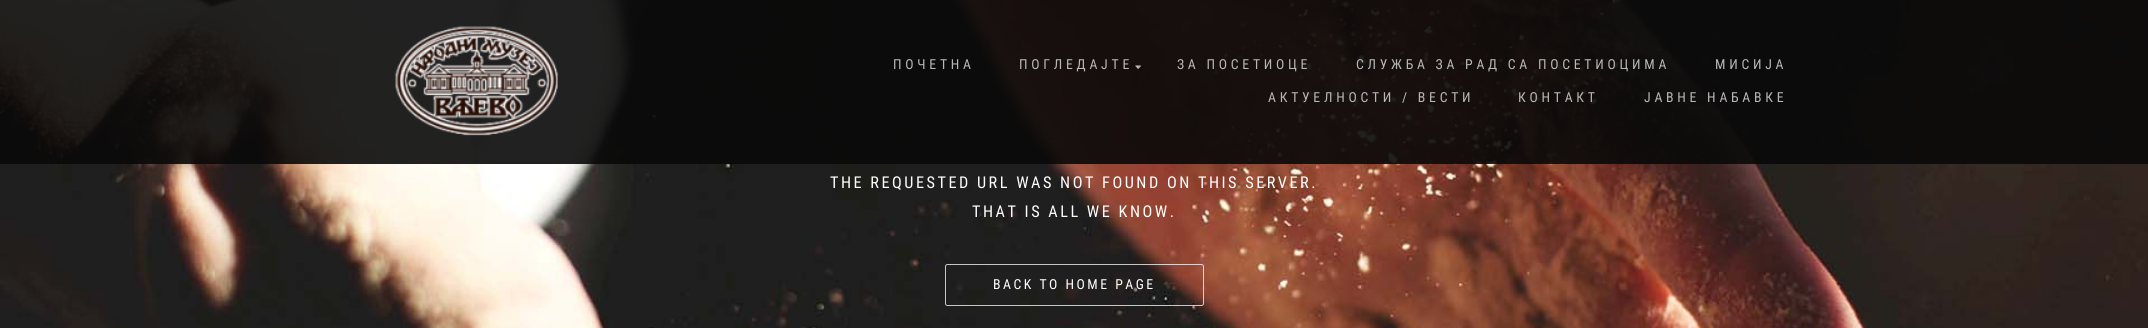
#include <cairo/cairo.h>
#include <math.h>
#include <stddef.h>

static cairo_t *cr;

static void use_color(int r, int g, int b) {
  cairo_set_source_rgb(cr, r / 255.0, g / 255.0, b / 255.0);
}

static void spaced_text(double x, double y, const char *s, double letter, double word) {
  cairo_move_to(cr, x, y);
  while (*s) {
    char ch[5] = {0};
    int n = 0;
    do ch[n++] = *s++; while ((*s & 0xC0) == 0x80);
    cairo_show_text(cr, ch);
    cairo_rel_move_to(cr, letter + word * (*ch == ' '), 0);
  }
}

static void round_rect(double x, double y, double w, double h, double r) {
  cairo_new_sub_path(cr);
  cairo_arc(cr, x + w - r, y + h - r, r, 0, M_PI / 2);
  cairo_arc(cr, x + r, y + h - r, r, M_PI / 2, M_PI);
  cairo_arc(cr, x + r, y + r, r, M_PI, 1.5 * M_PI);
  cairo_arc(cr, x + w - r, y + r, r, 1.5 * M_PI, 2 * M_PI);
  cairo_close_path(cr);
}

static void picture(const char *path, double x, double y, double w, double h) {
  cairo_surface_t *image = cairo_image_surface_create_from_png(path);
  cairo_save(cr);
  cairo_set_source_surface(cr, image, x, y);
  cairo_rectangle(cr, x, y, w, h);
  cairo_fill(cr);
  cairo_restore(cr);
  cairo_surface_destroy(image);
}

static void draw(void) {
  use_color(255, 255, 255);
  cairo_paint(cr);
  picture("img_03.png", 0, 0, 2148, 328);
  cairo_set_source_rgba(cr, 0.039, 0.039, 0.039, 0.9);
  cairo_rectangle(cr, 0, 0, 2148, 164);
  cairo_fill(cr);
  picture("img_01.png", 395, 26, 163, 110);
  picture("img_02.png", 1135, 65, 6, 4);
  round_rect(945.5, 264.5, 258, 41, 2);
  cairo_set_source_rgba(cr, 1, 1, 1, 0.75);
  cairo_set_line_width(cr, 1);
  cairo_stroke(cr);
  cairo_select_font_face(cr, "Roboto Condensed", CAIRO_FONT_SLANT_NORMAL, CAIRO_FONT_WEIGHT_NORMAL);
  cairo_set_font_size(cr, 13.75);
  use_color(184, 184, 184);
  spaced_text(893, 69, "ПОЧЕТНА", 3.75, 0);
  spaced_text(1019, 69, "ПОГЛЕДАЈТЕ", 3.75, 0);
  spaced_text(1177, 69, "ЗА ПОСЕТИОЦЕ", 3.75, 0);
  spaced_text(1356, 69, "СЛУЖБА ЗА РАД СА ПОСЕТИОЦИМА", 3.75, 0);
  spaced_text(1715, 69, "МИСИЈА", 3.75, 0);
  spaced_text(1268, 102, "АКТУЕЛНОСТИ / ВЕСТИ", 3.75, 0);
  spaced_text(1518, 102, "КОНТАКТ", 3.75, 0);
  spaced_text(1644, 102, "ЈАВНЕ НАБАВКЕ", 3.75, 0);
  cairo_set_font_size(cr, 16.25);
  use_color(255, 255, 255);
  spaced_text(830, 188, "THE REQUESTED URL WAS NOT FOUND ON THIS SERVER.", 2.5, 0);
  spaced_text(972, 217, "THAT IS ALL WE KNOW.", 2.5, 0);
  cairo_set_font_size(cr, 13.75);
  spaced_text(993, 289, "BACK TO HOME PAGE", 2.5, 0);
}

int main(void) {
  cairo_surface_t *surface = cairo_image_surface_create(CAIRO_FORMAT_RGB24, 2148, 328);
  cr = cairo_create(surface);
  cairo_font_options_t *options = cairo_font_options_create();
  cairo_font_options_set_hint_metrics(options, CAIRO_HINT_METRICS_OFF);
  cairo_font_options_set_hint_style(options, CAIRO_HINT_STYLE_NONE);
  cairo_set_font_options(cr, options);
  cairo_set_miter_limit(cr, 4);
  draw();
  cairo_surface_write_to_png(surface, "out.png");
  cairo_font_options_destroy(options);
  cairo_destroy(cr);
  cairo_surface_destroy(surface);
  return 0;
}
